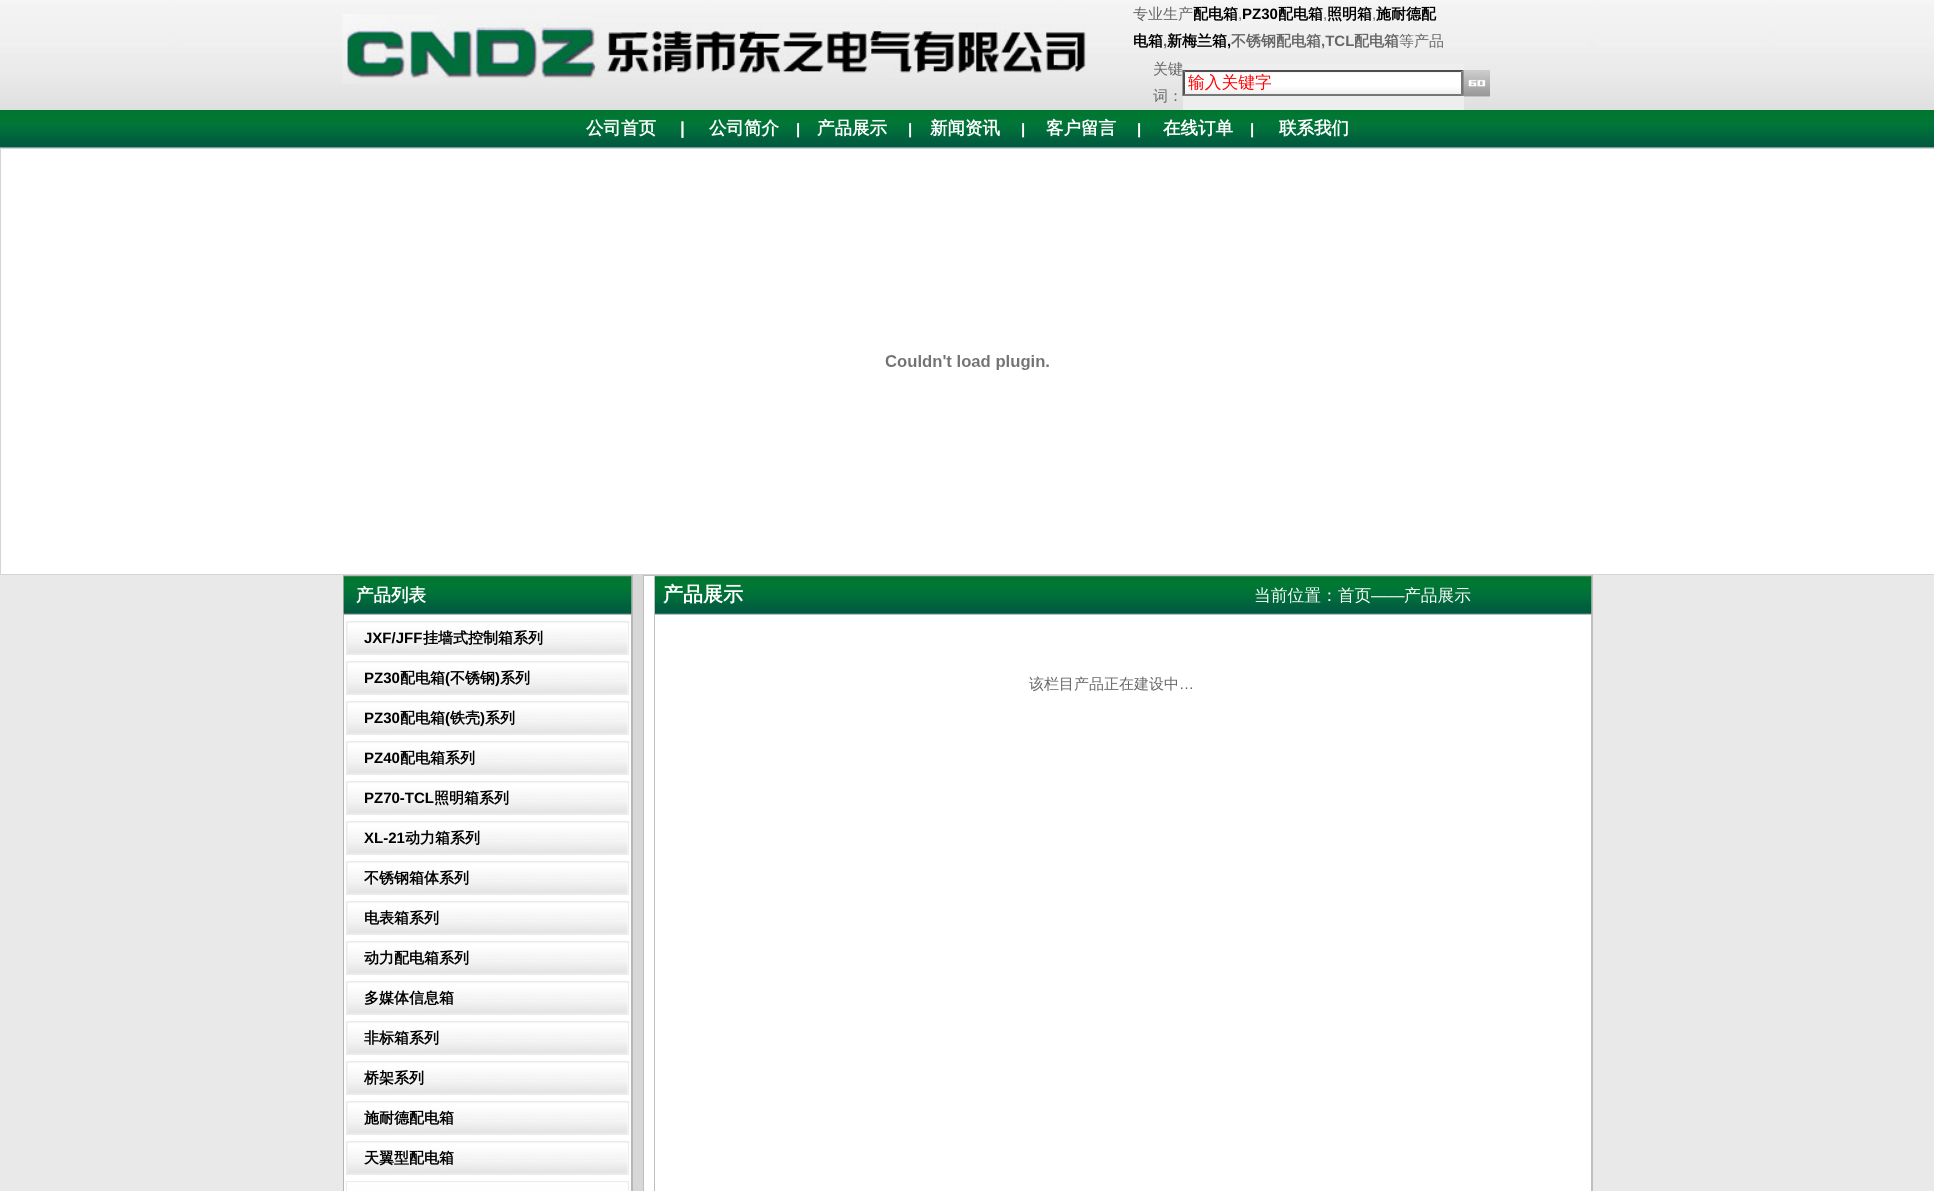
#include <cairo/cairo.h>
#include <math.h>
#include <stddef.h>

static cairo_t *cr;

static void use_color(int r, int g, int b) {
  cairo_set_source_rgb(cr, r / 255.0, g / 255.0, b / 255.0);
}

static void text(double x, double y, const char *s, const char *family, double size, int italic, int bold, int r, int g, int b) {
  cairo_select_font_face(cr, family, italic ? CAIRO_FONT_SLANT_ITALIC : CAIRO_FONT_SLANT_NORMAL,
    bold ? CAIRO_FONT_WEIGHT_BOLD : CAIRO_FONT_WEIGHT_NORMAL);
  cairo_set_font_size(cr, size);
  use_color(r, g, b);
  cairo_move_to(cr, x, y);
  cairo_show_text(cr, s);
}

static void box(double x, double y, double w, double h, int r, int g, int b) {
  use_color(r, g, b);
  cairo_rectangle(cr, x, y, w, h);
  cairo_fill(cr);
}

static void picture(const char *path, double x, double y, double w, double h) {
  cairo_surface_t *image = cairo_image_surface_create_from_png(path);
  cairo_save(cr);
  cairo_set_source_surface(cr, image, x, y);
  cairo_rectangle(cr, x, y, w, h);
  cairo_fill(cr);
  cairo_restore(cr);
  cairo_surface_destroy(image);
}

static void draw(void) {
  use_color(233, 233, 233);
  cairo_paint(cr);
  picture("img_01.png", 0, 0, 1934, 110);
  picture("img_02.png", 342, 14, 744, 70);
  box(1183, 64, 281, 46, 238, 238, 238);
  picture("img_06.png", 0, 110, 1934, 38);
  box(0, 148, 1934, 427, 213, 213, 213);
  box(1, 149, 1933, 425, 255, 255, 255);
  picture("img_07.png", 885, 355, 164, 15);
  box(633, 575, 10, 616, 215, 215, 215);
  box(343, 575, 290, 616, 182, 182, 182);
  picture("img_08.png", 343, 576, 289, 38);
  box(344, 615, 287, 576, 255, 255, 255);
  box(346, 621, 283, 34, 235, 235, 235);
  box(348, 623, 280, 31, 255, 255, 255);
  picture("img_09.png", 347, 622, 281, 32);
  box(346, 661, 283, 34, 235, 235, 235);
  box(348, 663, 280, 31, 255, 255, 255);
  picture("img_09.png", 347, 662, 281, 32);
  box(346, 701, 283, 34, 235, 235, 235);
  box(348, 703, 280, 31, 255, 255, 255);
  picture("img_10.png", 347, 702, 281, 32);
  box(346, 741, 283, 34, 235, 235, 235);
  box(348, 743, 280, 31, 255, 255, 255);
  picture("img_10.png", 347, 742, 281, 32);
  box(346, 781, 283, 34, 235, 235, 235);
  box(348, 783, 280, 31, 255, 255, 255);
  picture("img_11.png", 347, 782, 281, 32);
  box(346, 821, 283, 34, 235, 235, 235);
  box(348, 823, 280, 31, 255, 255, 255);
  picture("img_10.png", 347, 822, 281, 32);
  box(346, 861, 283, 34, 235, 235, 235);
  box(348, 863, 280, 31, 255, 255, 255);
  picture("img_10.png", 347, 862, 281, 32);
  box(346, 901, 283, 34, 235, 235, 235);
  box(348, 903, 280, 31, 255, 255, 255);
  picture("img_10.png", 347, 902, 281, 32);
  box(346, 941, 283, 34, 235, 235, 235);
  box(348, 943, 280, 31, 255, 255, 255);
  picture("img_10.png", 347, 942, 281, 32);
  box(346, 981, 283, 34, 235, 235, 235);
  box(348, 983, 280, 31, 255, 255, 255);
  picture("img_10.png", 347, 982, 281, 32);
  box(346, 1021, 283, 34, 235, 235, 235);
  box(348, 1023, 280, 31, 255, 255, 255);
  picture("img_10.png", 347, 1022, 281, 32);
  box(346, 1061, 283, 34, 235, 235, 235);
  box(348, 1063, 280, 31, 255, 255, 255);
  picture("img_10.png", 347, 1062, 281, 32);
  box(346, 1101, 283, 34, 235, 235, 235);
  box(348, 1103, 280, 31, 255, 255, 255);
  picture("img_10.png", 347, 1102, 281, 32);
  box(346, 1141, 283, 34, 235, 235, 235);
  box(348, 1143, 280, 31, 255, 255, 255);
  picture("img_10.png", 347, 1142, 281, 32);
  box(346, 1181, 283, 10, 235, 235, 235);
  box(347, 1182, 281, 9, 254, 254, 254);
  box(643, 575, 950, 616, 191, 191, 191);
  box(644, 576, 10, 615, 255, 255, 255);
  picture("img_12.png", 655, 576, 937, 38);
  box(655, 615, 936, 576, 255, 255, 255);
  text(1133, 19, "专业生产", "WenQuanYi Zen Hei Medium", 15, 0, 0, 102, 102, 102);
  text(1193, 19, "配电箱", "WenQuanYi Zen Hei", 15, 0, 1, 0, 0, 0);
  text(1238, 19, ",", "Liberation Sans", 15, 0, 0, 102, 102, 102);
  text(1242, 19, "PZ30", "Liberation Sans", 15, 0, 1, 0, 0, 0);
  text(1278, 19, "配电箱", "WenQuanYi Zen Hei", 15, 0, 1, 0, 0, 0);
  text(1323, 19, ",", "Liberation Sans", 15, 0, 0, 102, 102, 102);
  text(1327, 19, "照明箱", "WenQuanYi Zen Hei", 15, 0, 1, 0, 0, 0);
  text(1372, 19, ",", "Liberation Sans", 15, 0, 0, 102, 102, 102);
  text(1376, 19, "施耐德配", "WenQuanYi Zen Hei", 15, 0, 1, 0, 0, 0);
  text(1133, 46, "电箱", "WenQuanYi Zen Hei", 15, 0, 1, 0, 0, 0);
  text(1163, 46, ",", "Liberation Sans", 15, 0, 1, 102, 102, 102);
  text(1167, 46, "新梅兰箱", "WenQuanYi Zen Hei", 15, 0, 1, 0, 0, 0);
  text(1227, 46, ",", "Liberation Sans", 15, 0, 1, 0, 0, 0);
  text(1231, 46, "不锈钢配电箱", "WenQuanYi Zen Hei", 15, 0, 1, 102, 102, 102);
  text(1321, 46, ",TCL", "Liberation Sans", 15, 0, 1, 102, 102, 102);
  text(1354, 46, "配电箱", "WenQuanYi Zen Hei", 15, 0, 1, 102, 102, 102);
  text(1399, 46, "等产品", "WenQuanYi Zen Hei Medium", 15, 0, 0, 102, 102, 102);
  text(1153, 74, "关键", "WenQuanYi Zen Hei Medium", 15, 0, 0, 102, 102, 102);
  text(1153, 101, "词：", "WenQuanYi Zen Hei Medium", 15, 0, 0, 102, 102, 102);
  picture("img_03.png", 1182, 70, 282, 26);
  use_color(79, 79, 79);
  cairo_new_path(cr);
  cairo_move_to(cr, 1182, 70);
  cairo_line_to(cr, 1464, 70);
  cairo_line_to(cr, 1461, 72);
  cairo_line_to(cr, 1185, 72);
  cairo_close_path(cr);
  cairo_fill(cr);
  use_color(118, 118, 118);
  cairo_new_path(cr);
  cairo_move_to(cr, 1464, 70);
  cairo_line_to(cr, 1464, 96);
  cairo_line_to(cr, 1461, 94);
  cairo_line_to(cr, 1461, 72.5);
  cairo_close_path(cr);
  cairo_fill(cr);
  cairo_new_path(cr);
  cairo_move_to(cr, 1464, 96);
  cairo_line_to(cr, 1182, 96);
  cairo_line_to(cr, 1185, 94);
  cairo_line_to(cr, 1461, 94);
  cairo_close_path(cr);
  cairo_fill(cr);
  use_color(79, 79, 79);
  cairo_new_path(cr);
  cairo_move_to(cr, 1182.5, 96);
  cairo_line_to(cr, 1182.5, 70);
  cairo_line_to(cr, 1185, 72.5);
  cairo_line_to(cr, 1185, 94);
  cairo_close_path(cr);
  cairo_fill(cr);
  text(1188, 88, "输入关键字", "WenQuanYi Zen Hei Medium", 16.75, 0, 0, 255, 0, 0);
  picture("img_04.png", 1463, 70, 27, 27);
  picture("img_05.png", 1463, 70, 27, 27);
  text(586, 134, "公司首页", "WenQuanYi Zen Hei", 17.5, 0, 1, 255, 255, 255);
  text(680, 134, "|", "Liberation Sans", 17.5, 0, 1, 255, 255, 255);
  text(709, 134, "公司简介", "WenQuanYi Zen Hei", 17.5, 0, 1, 255, 255, 255);
  text(796, 134, "|", "Liberation Sans", 15, 0, 1, 255, 255, 255);
  text(817, 134, "产品展示", "WenQuanYi Zen Hei", 17.5, 0, 1, 255, 255, 255);
  text(908, 134, "|", "Liberation Sans", 15, 0, 1, 255, 255, 255);
  text(930, 134, "新闻资讯", "WenQuanYi Zen Hei", 17.5, 0, 1, 255, 255, 255);
  text(1021, 134, "|", "Liberation Sans", 15, 0, 1, 255, 255, 255);
  text(1046, 134, "客户留言", "WenQuanYi Zen Hei", 17.5, 0, 1, 255, 255, 255);
  text(1137, 134, "|", "Liberation Sans", 15, 0, 1, 255, 255, 255);
  text(1163, 134, "在线订单", "WenQuanYi Zen Hei", 17.5, 0, 1, 255, 255, 255);
  text(1250, 134, "|", "Liberation Sans", 15, 0, 1, 255, 255, 255);
  text(1279, 134, "联系我们", "WenQuanYi Zen Hei", 17.5, 0, 1, 255, 255, 255);
  text(356, 601, "产品列表", "WenQuanYi Zen Hei", 17.5, 0, 1, 255, 255, 255);
  text(364, 643, "JXF/JFF", "Liberation Sans", 15, 0, 1, 0, 0, 0);
  text(423, 643, "挂墙式控制箱系列", "WenQuanYi Zen Hei", 15, 0, 1, 0, 0, 0);
  text(364, 683, "PZ30", "Liberation Sans", 15, 0, 1, 0, 0, 0);
  text(400, 683, "配电箱", "WenQuanYi Zen Hei", 15, 0, 1, 0, 0, 0);
  text(445, 683, "(", "Liberation Sans", 15, 0, 1, 0, 0, 0);
  text(450, 683, "不锈钢", "WenQuanYi Zen Hei", 15, 0, 1, 0, 0, 0);
  text(495, 683, ")", "Liberation Sans", 15, 0, 1, 0, 0, 0);
  text(500, 683, "系列", "WenQuanYi Zen Hei", 15, 0, 1, 0, 0, 0);
  text(364, 723, "PZ30", "Liberation Sans", 15, 0, 1, 0, 0, 0);
  text(400, 723, "配电箱", "WenQuanYi Zen Hei", 15, 0, 1, 0, 0, 0);
  text(445, 723, "(", "Liberation Sans", 15, 0, 1, 0, 0, 0);
  text(450, 723, "铁壳", "WenQuanYi Zen Hei", 15, 0, 1, 0, 0, 0);
  text(480, 723, ")", "Liberation Sans", 15, 0, 1, 0, 0, 0);
  text(485, 723, "系列", "WenQuanYi Zen Hei", 15, 0, 1, 0, 0, 0);
  text(364, 763, "PZ40", "Liberation Sans", 15, 0, 1, 0, 0, 0);
  text(400, 763, "配电箱系列", "WenQuanYi Zen Hei", 15, 0, 1, 0, 0, 0);
  text(364, 803, "PZ70-TCL", "Liberation Sans", 15, 0, 1, 0, 0, 0);
  text(434, 803, "照明箱系列", "WenQuanYi Zen Hei", 15, 0, 1, 0, 0, 0);
  text(364, 843, "XL-21", "Liberation Sans", 15, 0, 1, 0, 0, 0);
  text(405, 843, "动力箱系列", "WenQuanYi Zen Hei", 15, 0, 1, 0, 0, 0);
  text(364, 883, "不锈钢箱体系列", "WenQuanYi Zen Hei", 15, 0, 1, 0, 0, 0);
  text(364, 923, "电表箱系列", "WenQuanYi Zen Hei", 15, 0, 1, 0, 0, 0);
  text(364, 963, "动力配电箱系列", "WenQuanYi Zen Hei", 15, 0, 1, 0, 0, 0);
  text(364, 1003, "多媒体信息箱", "WenQuanYi Zen Hei", 15, 0, 1, 0, 0, 0);
  text(364, 1043, "非标箱系列", "WenQuanYi Zen Hei", 15, 0, 1, 0, 0, 0);
  text(364, 1083, "桥架系列", "WenQuanYi Zen Hei", 15, 0, 1, 0, 0, 0);
  text(364, 1123, "施耐德配电箱", "WenQuanYi Zen Hei", 15, 0, 1, 0, 0, 0);
  text(364, 1163, "天翼型配电箱", "WenQuanYi Zen Hei", 15, 0, 1, 0, 0, 0);
  text(663, 601, "产品展示", "WenQuanYi Zen Hei", 20, 0, 1, 255, 255, 255);
  text(1254, 601, "当前位置：首页", "WenQuanYi Zen Hei Medium", 16.75, 0, 0, 255, 255, 255);
  text(1371, 601, "——", "Liberation Sans", 16.75, 0, 0, 255, 255, 255);
  text(1404, 601, "产品展示", "WenQuanYi Zen Hei Medium", 16.75, 0, 0, 255, 255, 255);
  text(1029, 689, "该栏目产品正在建设中", "WenQuanYi Zen Hei Medium", 15, 0, 0, 102, 102, 102);
  text(1179, 689, "…", "Liberation Sans", 15, 0, 0, 102, 102, 102);
}

int main(void) {
  cairo_surface_t *surface = cairo_image_surface_create(CAIRO_FORMAT_RGB24, 1934, 1191);
  cr = cairo_create(surface);
  cairo_font_options_t *options = cairo_font_options_create();
  cairo_font_options_set_hint_metrics(options, CAIRO_HINT_METRICS_OFF);
  cairo_font_options_set_hint_style(options, CAIRO_HINT_STYLE_NONE);
  cairo_set_font_options(cr, options);
  cairo_set_miter_limit(cr, 4);
  draw();
  cairo_surface_write_to_png(surface, "out.png");
  cairo_font_options_destroy(options);
  cairo_destroy(cr);
  cairo_surface_destroy(surface);
  return 0;
}
